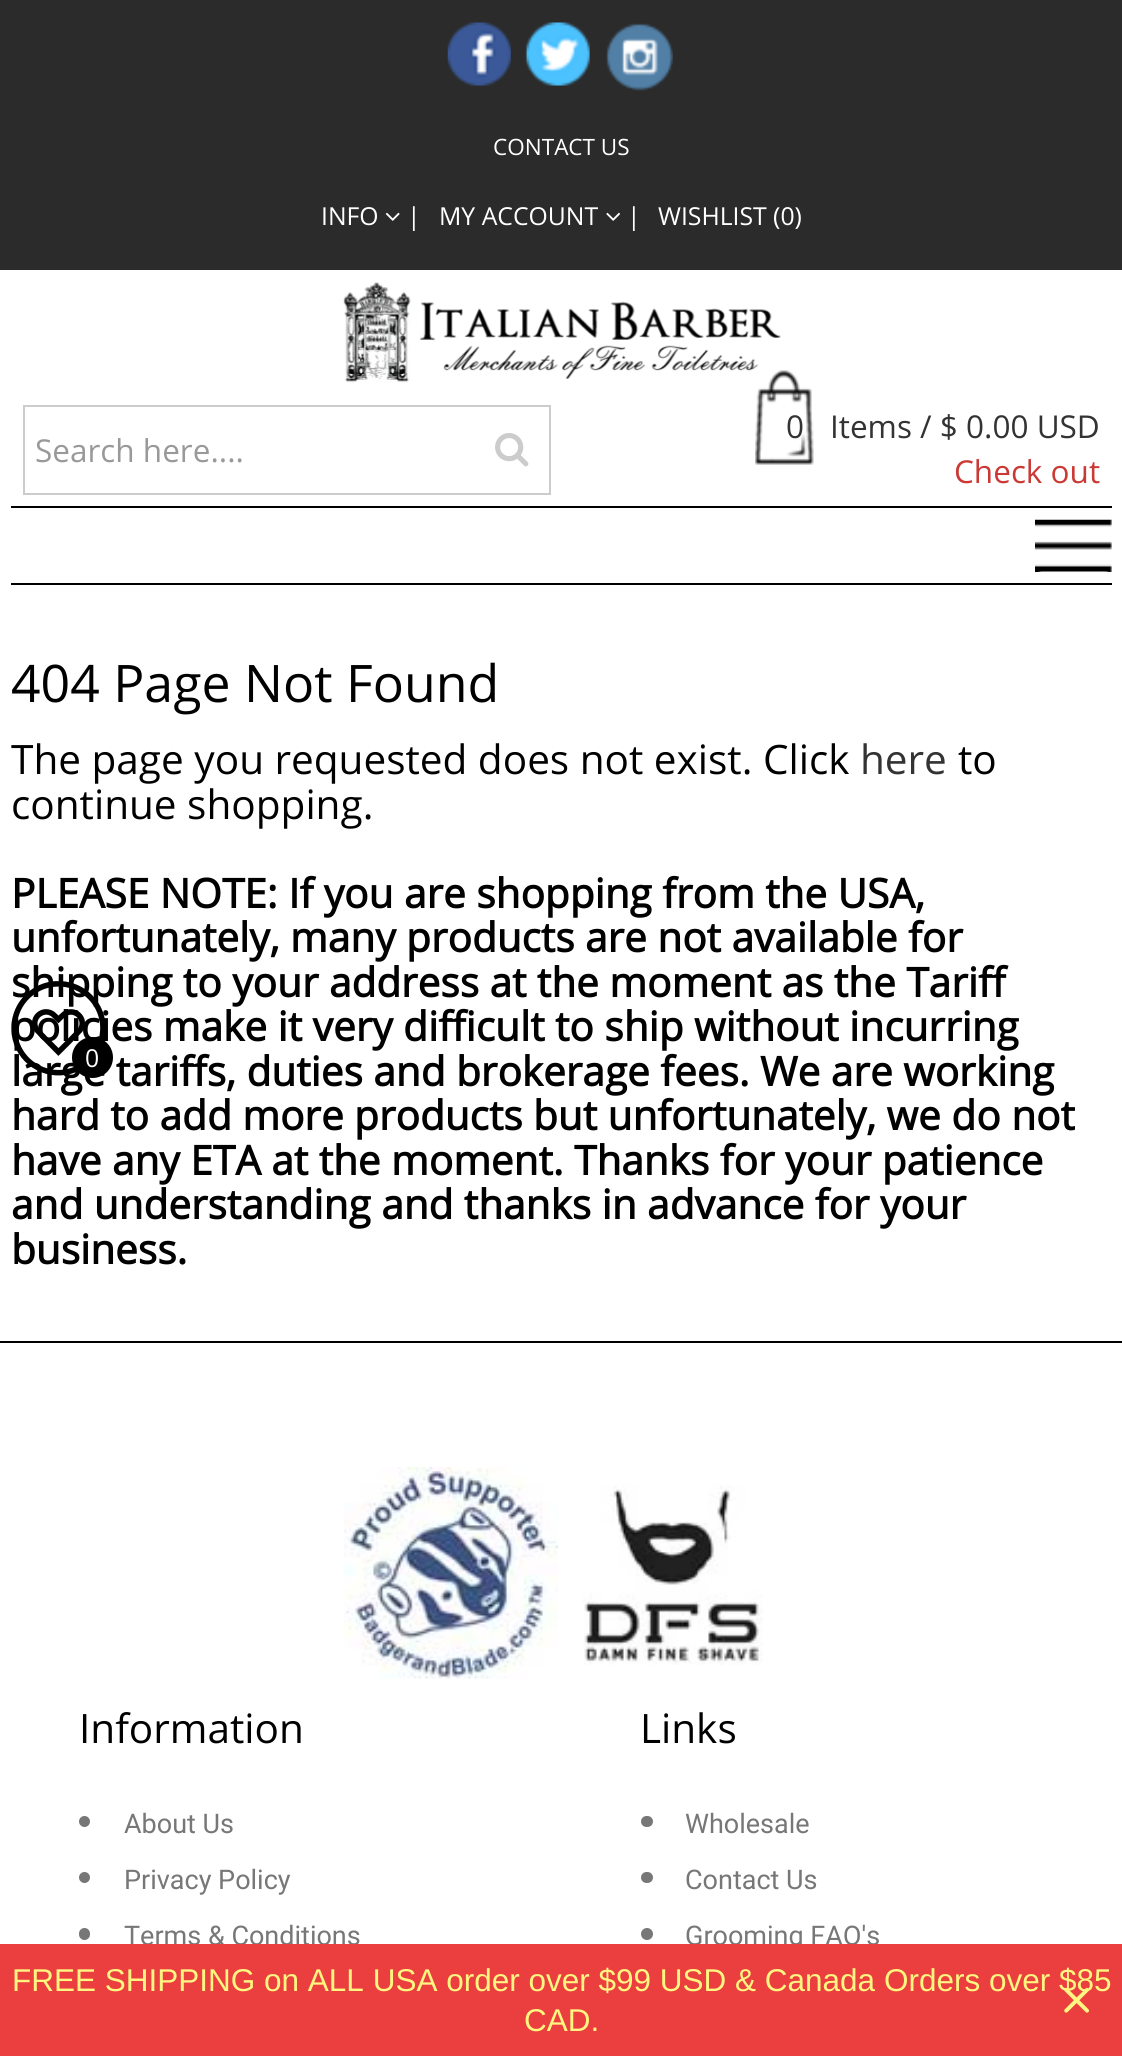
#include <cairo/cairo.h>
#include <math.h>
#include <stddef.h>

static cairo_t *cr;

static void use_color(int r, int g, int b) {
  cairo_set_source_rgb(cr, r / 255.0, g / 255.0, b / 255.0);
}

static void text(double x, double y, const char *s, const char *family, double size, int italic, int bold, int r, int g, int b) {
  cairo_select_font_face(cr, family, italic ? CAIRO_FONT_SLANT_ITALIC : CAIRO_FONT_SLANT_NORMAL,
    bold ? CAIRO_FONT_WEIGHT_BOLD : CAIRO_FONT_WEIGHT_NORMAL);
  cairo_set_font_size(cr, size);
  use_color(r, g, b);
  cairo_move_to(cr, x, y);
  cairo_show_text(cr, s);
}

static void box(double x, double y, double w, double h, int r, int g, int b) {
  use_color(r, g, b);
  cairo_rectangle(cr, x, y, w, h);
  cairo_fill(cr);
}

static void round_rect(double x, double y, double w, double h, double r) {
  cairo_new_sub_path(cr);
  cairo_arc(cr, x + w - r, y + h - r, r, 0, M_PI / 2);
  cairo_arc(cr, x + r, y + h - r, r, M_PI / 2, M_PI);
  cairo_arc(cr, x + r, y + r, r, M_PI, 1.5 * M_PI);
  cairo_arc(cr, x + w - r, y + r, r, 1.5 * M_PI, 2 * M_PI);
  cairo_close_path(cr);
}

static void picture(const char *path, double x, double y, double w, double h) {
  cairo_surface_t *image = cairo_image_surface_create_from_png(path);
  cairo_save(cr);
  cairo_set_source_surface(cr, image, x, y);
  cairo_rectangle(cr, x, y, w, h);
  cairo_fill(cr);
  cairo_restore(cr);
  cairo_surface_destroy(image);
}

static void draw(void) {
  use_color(255, 255, 255);
  cairo_paint(cr);
  box(0, 0, 1122, 270, 43, 43, 43);
  picture("img_01.png", 447, 22, 64, 64);
  picture("img_02.png", 525, 22, 65, 64);
  picture("img_03.png", 606, 23, 67, 68);
  picture("img_04.png", 385, 212, 15, 9);
  picture("img_05.png", 606, 212, 14, 9);
  picture("img_06.png", 343, 282, 438, 101);
  box(23, 405, 528, 2, 204, 204, 204);
  box(23, 493, 454, 2, 204, 204, 204);
  box(23, 405, 2, 90, 204, 204, 204);
  box(549, 405, 2, 90, 204, 204, 204);
  box(477, 493, 74, 2, 204, 204, 204);
  picture("img_07.png", 495, 433, 34, 34);
  picture("img_08.png", 755, 370, 59, 95);
  box(11, 506, 1101, 2, 0, 0, 0);
  box(11, 583, 1101, 2, 0, 0, 0);
  picture("img_09.png", 1035, 519, 77, 53);
  box(0, 1341, 1122, 2, 0, 0, 0);
  picture("img_11.png", 344, 1467, 214, 212);
  picture("img_12.png", 583, 1485, 180, 180);
  use_color(119, 119, 119);
  cairo_arc(cr, 84.5, 1821.5, 5.5, 0, 2 * M_PI);
  cairo_fill(cr);
  cairo_arc(cr, 84.5, 1877.5, 5.5, 0, 2 * M_PI);
  cairo_fill(cr);
  round_rect(79, 1928, 11, 12, 5.5);
  cairo_fill(cr);
  round_rect(641, 1816, 12, 11, 5.5);
  cairo_fill(cr);
  round_rect(641, 1872, 12, 11, 5.5);
  cairo_fill(cr);
  cairo_arc(cr, 647, 1934, 6, 0, 2 * M_PI);
  cairo_fill(cr);
  text(493, 155, "CONTACT US", "Open Sans", 22.5, 0, 0, 255, 255, 255);
  text(321, 225, "INFO", "Open Sans", 24.75, 0, 0, 255, 255, 255);
  text(407, 225, "|", "Open Sans", 24.75, 0, 0, 255, 255, 255);
  text(439, 225, "MY ACCOUNT", "Open Sans", 24.75, 0, 0, 255, 255, 255);
  text(627, 225, "|", "Open Sans", 24.75, 0, 0, 255, 255, 255);
  text(658, 225, "WISHLIST (0)", "Open Sans", 24.75, 0, 0, 255, 255, 255);
  text(35, 462, "Search here....", "Open Sans", 31.5, 0, 0, 153, 153, 153);
  text(786, 438, "0", "Open Sans", 31.5, 0, 0, 51, 51, 51);
  text(830, 438, "Items / $ 0.00 USD", "Open Sans", 31.5, 0, 0, 51, 51, 51);
  text(954, 483, "Check out", "Open Sans", 31.5, 0, 0, 203, 57, 52);
  text(11, 702, "404 Page Not Found", "Open Sans", 51.75, 0, 0, 0, 0, 0);
  text(11, 774, "The page you requested does not exist. Click", "Open Sans", 40.5, 0, 0, 0, 0, 0);
  text(860, 774, "here", "Open Sans", 40.5, 0, 0, 51, 51, 51);
  text(958, 774, "to", "Open Sans", 40.5, 0, 0, 0, 0, 0);
  text(11, 819, "continue shopping.", "Open Sans", 40.5, 0, 0, 0, 0, 0);
  text(11, 908, "PLEASE NOTE: If you are shopping from the USA,", "Open Sans", 40.5, 0, 1, 0, 0, 0);
  text(11, 952, "unfortunately, many products are not available for", "Open Sans", 40.5, 0, 1, 0, 0, 0);
  text(11, 997, "shipping to your address at the moment as the Tariff", "Open Sans", 40.5, 0, 1, 0, 0, 0);
  text(11, 1041, "policies make it very difficult to ship without incurring", "Open Sans", 40.5, 0, 1, 0, 0, 0);
  text(11, 1086, "large tariffs, duties and brokerage fees. We are working", "Open Sans", 40.5, 0, 1, 0, 0, 0);
  text(11, 1130, "hard to add more products but unfortunately, we do not", "Open Sans", 40.5, 0, 1, 0, 0, 0);
  text(11, 1175, "have any ETA at the moment. Thanks for your patience", "Open Sans", 40.5, 0, 1, 0, 0, 0);
  text(11, 1219, "and understanding and thanks in advance for your", "Open Sans", 40.5, 0, 1, 0, 0, 0);
  text(11, 1264, "business.", "Open Sans", 40.5, 0, 1, 0, 0, 0);
  picture("img_10.png", 11, 981, 94, 95);
  cairo_arc(cr, 92.5, 1057.5, 20.5, 0, 2 * M_PI);
  cairo_fill(cr);
  text(85, 1067, "0", "Open Sans", 24.75, 0, 0, 255, 255, 255);
  text(79, 1743, "Information", "Open Sans", 40.5, 0, 0, 0, 0, 0);
  text(124, 1833, "About Us", "Roboto", 27, 0, 0, 119, 119, 119);
  text(124, 1889, "Privacy Policy", "Roboto", 27, 0, 0, 119, 119, 119);
  text(124, 1945, "Terms & Conditions", "Roboto", 27, 0, 0, 119, 119, 119);
  text(640, 1743, "Links", "Open Sans", 40.5, 0, 0, 0, 0, 0);
  text(685, 1833, "Wholesale", "Roboto", 27, 0, 0, 119, 119, 119);
  text(685, 1889, "Contact Us", "Roboto", 27, 0, 0, 119, 119, 119);
  text(685, 1945, "Grooming FAQ's", "Roboto", 27, 0, 0, 119, 119, 119);
  box(0, 1944, 1122, 112, 235, 62, 62);
  text(12, 1991, "FREE SHIPPING on ALL USA order over $99 USD & Canada Orders over $85", "Liberation Sans", 31.5, 0, 0, 255, 246, 129);
  text(524, 2031, "CAD.", "Liberation Sans", 31.5, 0, 0, 255, 246, 129);
  picture("img_13.png", 1064, 1987, 25, 26);
}

int main(void) {
  cairo_surface_t *surface = cairo_image_surface_create(CAIRO_FORMAT_RGB24, 1122, 2056);
  cr = cairo_create(surface);
  cairo_font_options_t *options = cairo_font_options_create();
  cairo_font_options_set_hint_metrics(options, CAIRO_HINT_METRICS_OFF);
  cairo_font_options_set_hint_style(options, CAIRO_HINT_STYLE_NONE);
  cairo_set_font_options(cr, options);
  cairo_set_miter_limit(cr, 4);
  draw();
  cairo_surface_write_to_png(surface, "out.png");
  cairo_font_options_destroy(options);
  cairo_destroy(cr);
  cairo_surface_destroy(surface);
  return 0;
}
